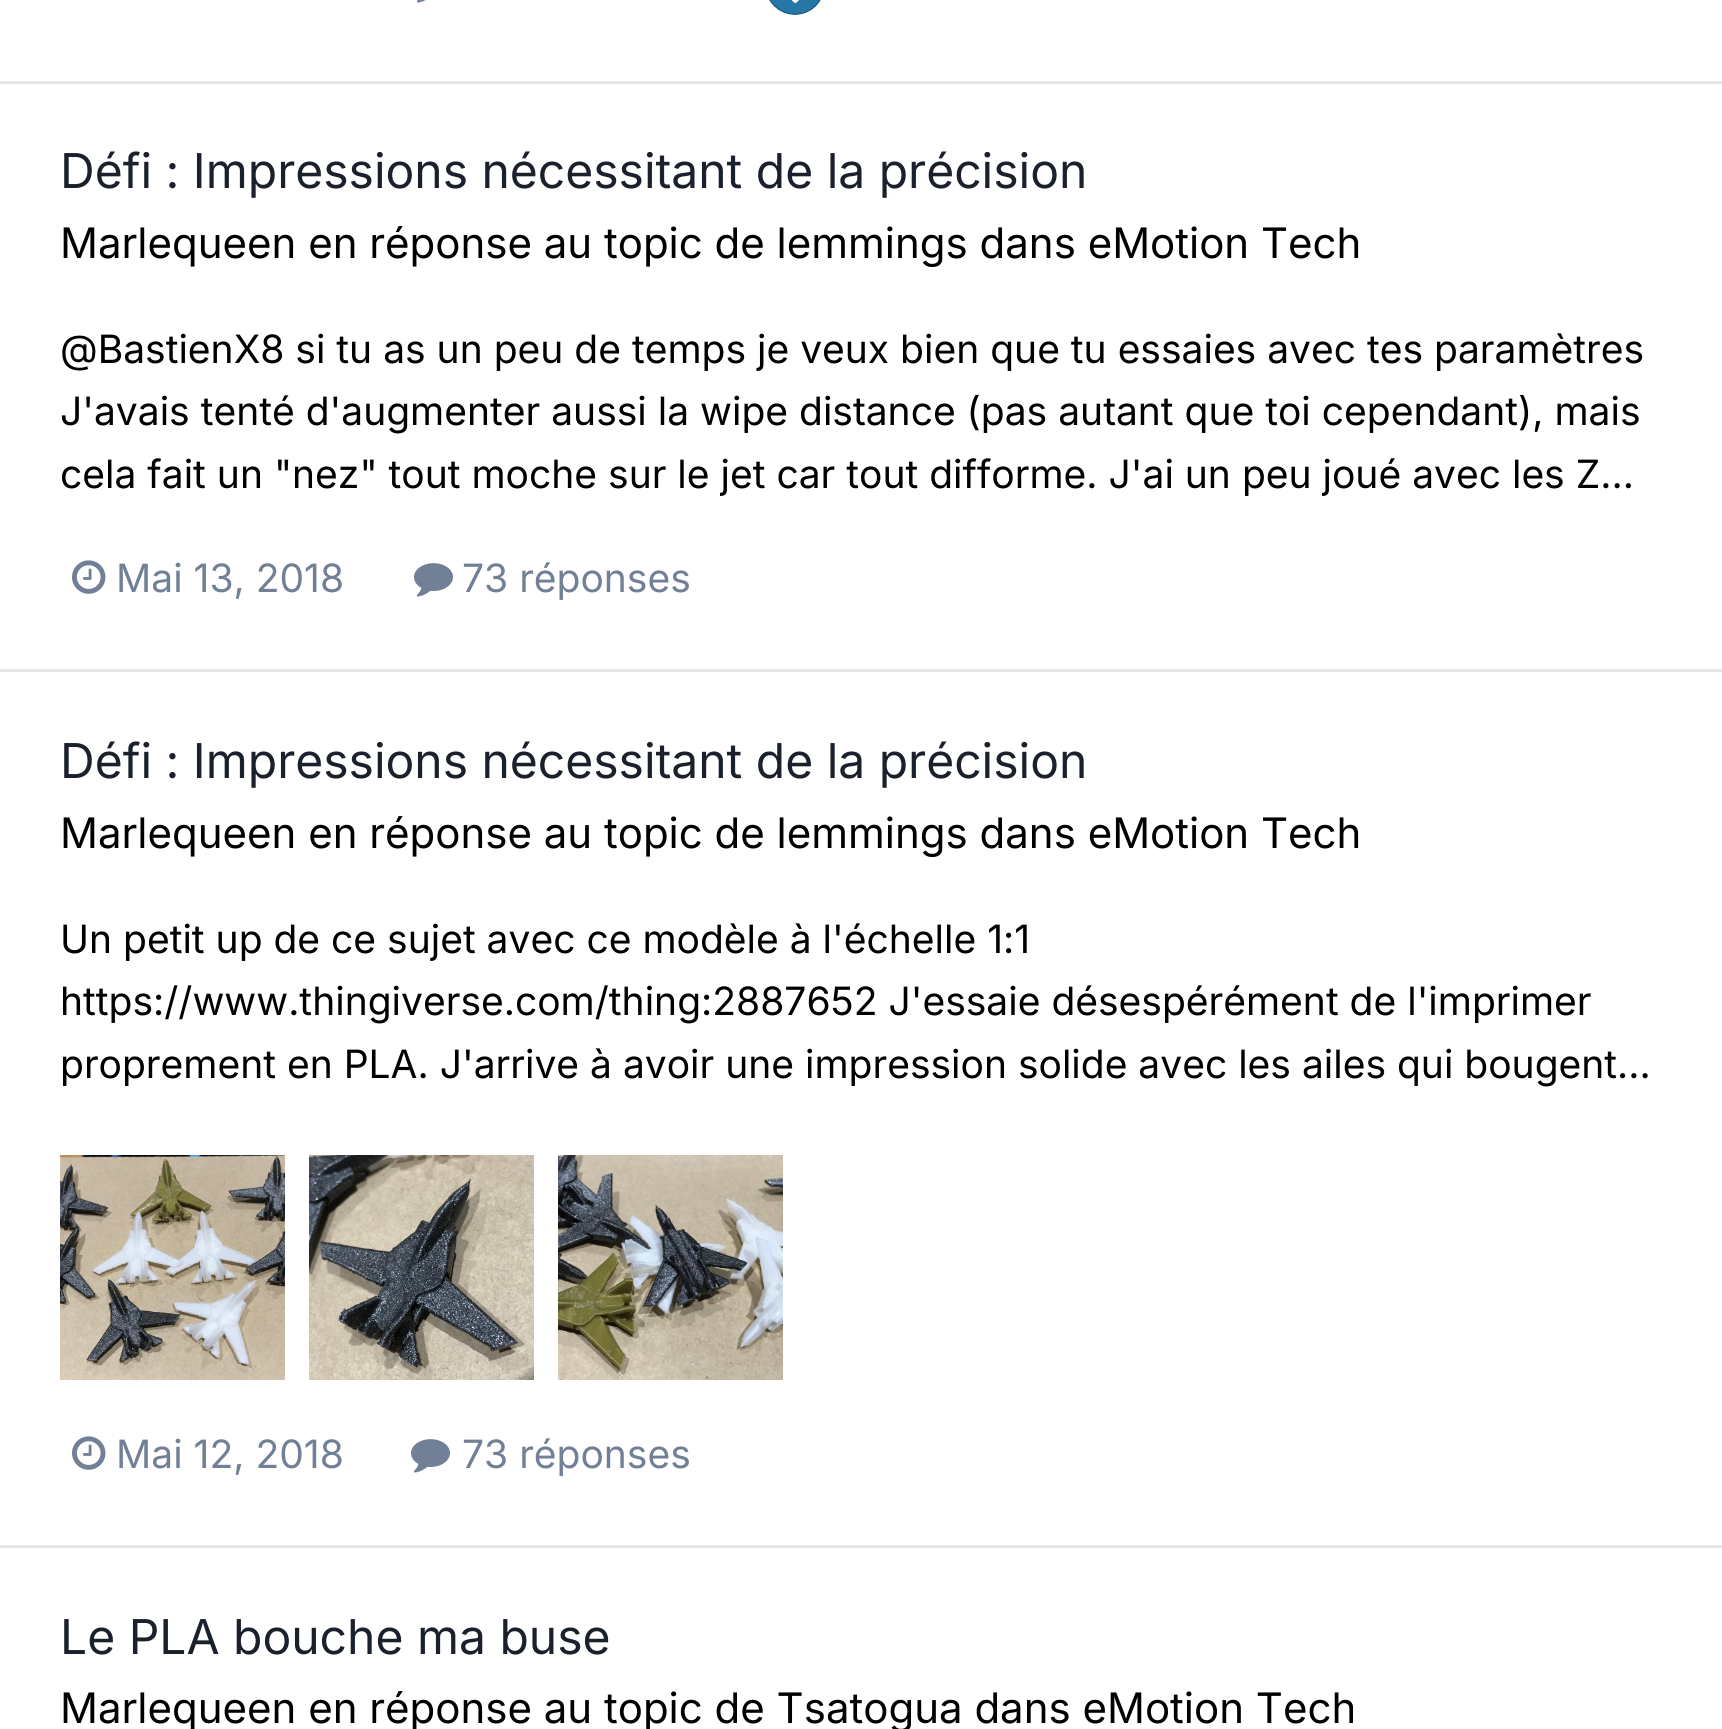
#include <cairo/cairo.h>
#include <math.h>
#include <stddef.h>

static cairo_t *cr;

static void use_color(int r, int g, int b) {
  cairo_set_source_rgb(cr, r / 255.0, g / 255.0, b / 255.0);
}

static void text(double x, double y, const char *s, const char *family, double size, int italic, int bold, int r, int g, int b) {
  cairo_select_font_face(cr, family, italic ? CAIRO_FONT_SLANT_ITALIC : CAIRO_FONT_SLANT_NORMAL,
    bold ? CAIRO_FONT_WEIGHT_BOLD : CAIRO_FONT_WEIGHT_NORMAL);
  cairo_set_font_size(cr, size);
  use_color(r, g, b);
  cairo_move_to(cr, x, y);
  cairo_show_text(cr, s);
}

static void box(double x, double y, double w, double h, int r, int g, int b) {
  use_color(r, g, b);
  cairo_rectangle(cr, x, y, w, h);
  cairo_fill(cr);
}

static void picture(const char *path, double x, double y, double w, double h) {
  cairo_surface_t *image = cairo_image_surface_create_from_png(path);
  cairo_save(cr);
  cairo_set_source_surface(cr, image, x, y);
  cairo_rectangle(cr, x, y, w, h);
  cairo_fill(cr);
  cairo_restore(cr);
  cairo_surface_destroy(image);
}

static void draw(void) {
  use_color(255, 255, 255);
  cairo_paint(cr);
  box(0, 81, 1722, 3, 230, 230, 230);
  picture("img_01.png", 416, 0, 10, 3);
  picture("img_02.png", 769, 0, 52, 15);
  box(0, 669, 1722, 3, 230, 230, 230);
  picture("img_03.png", 72, 560, 34, 34);
  picture("img_04.png", 414, 563, 39, 34);
  box(0, 1545, 1722, 3, 230, 230, 230);
  picture("img_05.png", 60, 1155, 225, 225);
  picture("img_06.png", 309, 1155, 225, 225);
  picture("img_07.png", 558, 1155, 225, 225);
  picture("img_03.png", 72, 1436, 34, 34);
  picture("img_04.png", 411, 1439, 39, 34);
  text(60, 188, "Défi : Impressions nécessitant de la précision", "Inter", 48, 0, 0, 26, 32, 44);
  text(60, 258, "Marlequeen en réponse au topic de lemmings dans eMotion Tech", "Inter", 42, 0, 0, 0, 0, 0);
  text(60, 363, "@BastienX8 si tu as un peu de temps je veux bien que tu essaies avec tes paramètres", "Inter", 39, 0, 0, 0, 0, 0);
  text(60, 425, "J'avais tenté d'augmenter aussi la wipe distance (pas autant que toi cependant), mais", "Inter", 39, 0, 0, 0, 0, 0);
  text(60, 488, "cela fait un \"nez\" tout moche sur le jet car tout difforme. J'ai un peu joué avec les Z...", "Inter", 39, 0, 0, 0, 0, 0);
  text(116, 592, "Mai 13, 2018", "Inter", 39, 0, 0, 113, 128, 150);
  text(462, 592, "73 réponses", "Inter", 39, 0, 0, 113, 128, 150);
  text(60, 778, "Défi : Impressions nécessitant de la précision", "Inter", 48, 0, 0, 26, 32, 44);
  text(60, 848, "Marlequeen en réponse au topic de lemmings dans eMotion Tech", "Inter", 42, 0, 0, 0, 0, 0);
  text(60, 953, "Un petit up de ce sujet avec ce modèle à l'échelle 1:1", "Inter", 39, 0, 0, 0, 0, 0);
  text(60, 1015, "https://www.thingiverse.com/thing:2887652 J'essaie désespérément de l'imprimer", "Inter", 39, 0, 0, 0, 0, 0);
  text(60, 1078, "proprement en PLA. J'arrive à avoir une impression solide avec les ailes qui bougent...", "Inter", 39, 0, 0, 0, 0, 0);
  text(116, 1468, "Mai 12, 2018", "Inter", 39, 0, 0, 113, 128, 150);
  text(462, 1468, "73 réponses", "Inter", 39, 0, 0, 113, 128, 150);
  text(60, 1654, "Le PLA bouche ma buse", "Inter", 48, 0, 0, 26, 32, 44);
  text(60, 1723, "Marlequeen en réponse au topic de Tsatogua dans eMotion Tech", "Inter", 42, 0, 0, 0, 0, 0);
}

int main(void) {
  cairo_surface_t *surface = cairo_image_surface_create(CAIRO_FORMAT_RGB24, 1722, 1729);
  cr = cairo_create(surface);
  cairo_font_options_t *options = cairo_font_options_create();
  cairo_font_options_set_hint_metrics(options, CAIRO_HINT_METRICS_OFF);
  cairo_font_options_set_hint_style(options, CAIRO_HINT_STYLE_NONE);
  cairo_set_font_options(cr, options);
  cairo_set_miter_limit(cr, 4);
  draw();
  cairo_surface_write_to_png(surface, "out.png");
  cairo_font_options_destroy(options);
  cairo_destroy(cr);
  cairo_surface_destroy(surface);
  return 0;
}
